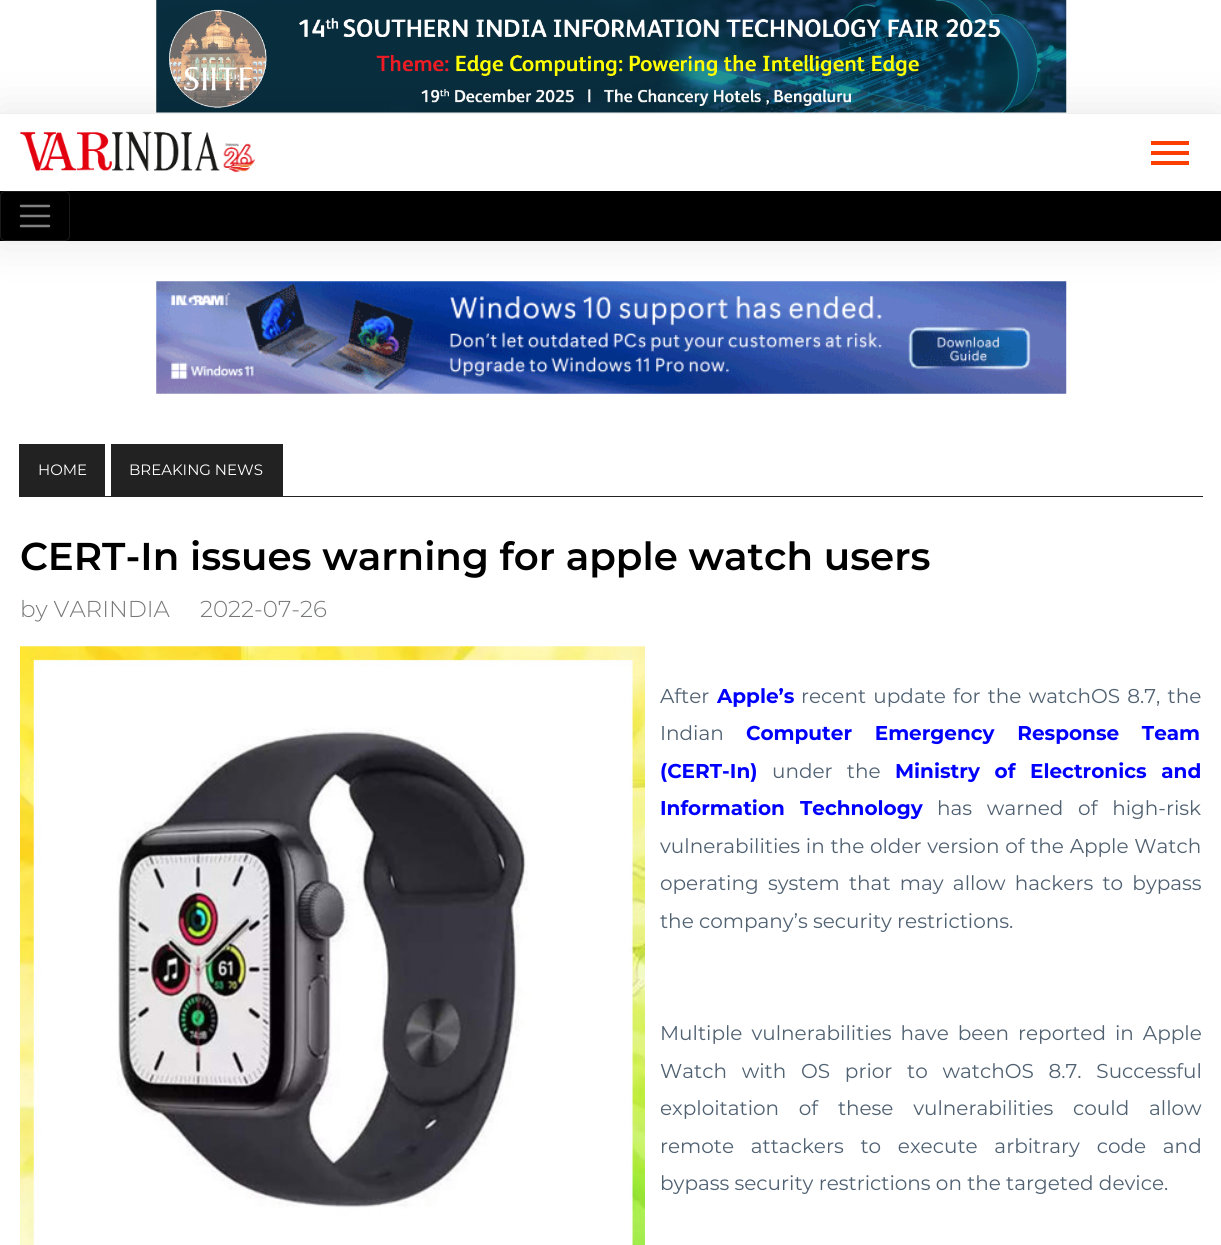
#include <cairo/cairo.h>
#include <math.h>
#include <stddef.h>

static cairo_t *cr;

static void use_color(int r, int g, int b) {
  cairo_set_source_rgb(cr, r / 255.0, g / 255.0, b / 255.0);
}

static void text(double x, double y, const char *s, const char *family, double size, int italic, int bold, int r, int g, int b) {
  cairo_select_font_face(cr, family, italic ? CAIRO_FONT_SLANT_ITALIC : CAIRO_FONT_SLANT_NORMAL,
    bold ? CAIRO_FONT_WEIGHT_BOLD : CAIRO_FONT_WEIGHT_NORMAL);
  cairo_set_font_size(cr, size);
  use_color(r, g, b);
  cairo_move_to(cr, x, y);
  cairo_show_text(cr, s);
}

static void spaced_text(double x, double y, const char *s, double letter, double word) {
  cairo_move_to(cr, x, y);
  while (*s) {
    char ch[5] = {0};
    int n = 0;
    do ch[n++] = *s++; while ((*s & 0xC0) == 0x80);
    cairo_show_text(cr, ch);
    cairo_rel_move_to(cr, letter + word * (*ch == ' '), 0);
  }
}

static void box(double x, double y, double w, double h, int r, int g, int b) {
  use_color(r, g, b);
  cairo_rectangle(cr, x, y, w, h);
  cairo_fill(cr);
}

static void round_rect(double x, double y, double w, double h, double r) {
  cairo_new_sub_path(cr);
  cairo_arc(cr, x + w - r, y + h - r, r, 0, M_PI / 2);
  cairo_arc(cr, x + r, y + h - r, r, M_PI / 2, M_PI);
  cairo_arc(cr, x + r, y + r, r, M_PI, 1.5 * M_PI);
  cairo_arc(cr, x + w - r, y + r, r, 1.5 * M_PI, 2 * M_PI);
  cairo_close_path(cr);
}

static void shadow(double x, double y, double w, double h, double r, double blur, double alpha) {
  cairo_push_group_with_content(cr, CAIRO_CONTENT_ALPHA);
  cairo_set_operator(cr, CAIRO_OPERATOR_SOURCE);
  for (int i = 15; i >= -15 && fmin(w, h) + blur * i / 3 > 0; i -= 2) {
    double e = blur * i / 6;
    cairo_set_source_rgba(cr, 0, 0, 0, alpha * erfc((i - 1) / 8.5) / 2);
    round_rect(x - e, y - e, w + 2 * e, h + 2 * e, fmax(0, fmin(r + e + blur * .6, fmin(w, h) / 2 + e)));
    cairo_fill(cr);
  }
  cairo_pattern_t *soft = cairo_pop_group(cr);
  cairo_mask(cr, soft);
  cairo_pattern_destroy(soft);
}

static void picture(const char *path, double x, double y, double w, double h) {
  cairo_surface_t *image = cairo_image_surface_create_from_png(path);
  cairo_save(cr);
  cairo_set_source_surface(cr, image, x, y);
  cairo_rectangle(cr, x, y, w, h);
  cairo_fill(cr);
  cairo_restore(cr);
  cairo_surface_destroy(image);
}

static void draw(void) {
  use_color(255, 255, 255);
  cairo_paint(cr);
  picture("img_01.png", 156, 0, 911, 113);
  cairo_save(cr);
  cairo_set_fill_rule(cr, CAIRO_FILL_RULE_EVEN_ODD);
  cairo_new_path(cr);
  cairo_move_to(cr, 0, 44);
  cairo_line_to(cr, 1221, 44);
  cairo_line_to(cr, 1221, 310);
  cairo_line_to(cr, 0, 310);
  cairo_close_path(cr);
  cairo_move_to(cr, 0, 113);
  cairo_line_to(cr, 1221, 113);
  cairo_line_to(cr, 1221, 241);
  cairo_line_to(cr, 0, 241);
  cairo_close_path(cr);
  cairo_clip(cr);
  use_color(0, 0, 0);
  shadow(0, 113, 1221, 128, 0, 22.5, 0.1);
  cairo_restore(cr);
  box(0, 113, 1221, 1, 238, 238, 238);
  picture("img_02.png", 20, 131, 200, 40);
  picture("img_03.png", 223, 143, 32, 30);
  box(1151, 141, 38, 4, 252, 63, 0);
  box(1151, 151, 38, 4, 252, 63, 0);
  box(1151, 161, 38, 4, 252, 63, 0);
  box(0, 191, 1221, 50, 0, 0, 0);
  round_rect(0.5, 191.5, 69, 49, 4.5);
  use_color(26, 26, 26);
  cairo_set_line_width(cr, 1);
  cairo_stroke(cr);
  cairo_new_path(cr);
  cairo_move_to(cr, 21, 206);
  cairo_line_to(cr, 49, 206);
  cairo_move_to(cr, 21, 216);
  cairo_line_to(cr, 49, 216);
  cairo_move_to(cr, 21, 226);
  cairo_line_to(cr, 49, 226);
  use_color(128, 128, 128);
  cairo_set_line_width(cr, 2.5);
  cairo_set_line_cap(cr, CAIRO_LINE_CAP_ROUND);
  cairo_stroke(cr);
  picture("img_04.png", 156, 281, 911, 113);
  box(19, 496, 1184, 1, 34, 34, 34);
  box(19, 444, 86, 52, 34, 34, 34);
  box(111, 444, 172, 52, 34, 34, 34);
  picture("img_05.png", 20, 646, 625, 599);
  text(38, 475, "HOME", "Montserrat", 15, 0, 0, 255, 255, 255);
  text(129, 475, "BREAKING NEWS", "Montserrat", 15, 0, 0, 255, 255, 255);
  text(20, 570, "CERT-In issues warning for apple watch users", "Montserrat SemiBold", 38.75, 0, 0, 0, 0, 0);
  text(20, 617, "by VARINDIA", "Montserrat Light", 23, 0, 0, 119, 120, 121);
  text(200, 617, "2022-07-26", "Montserrat Light", 23, 0, 0, 119, 120, 121);
  text(660, 703, "After", "Montserrat", 20, 0, 0, 80, 97, 114);
  text(717, 703, "Apple’s", "Montserrat", 20, 0, 1, 0, 0, 255);
  cairo_select_font_face(cr, "Montserrat", CAIRO_FONT_SLANT_NORMAL, CAIRO_FONT_WEIGHT_NORMAL);
  use_color(80, 97, 114);
  spaced_text(801, 703, "recent update for the watchOS 8.7, the", 0, 2);
  text(660, 740, "Indian", "Montserrat", 20, 0, 0, 80, 97, 114);
  cairo_select_font_face(cr, "Montserrat", CAIRO_FONT_SLANT_NORMAL, CAIRO_FONT_WEIGHT_BOLD);
  use_color(0, 0, 255);
  spaced_text(746, 740, "Computer Emergency Response Team", 0, 17);
  text(660, 778, "(CERT-In)", "Montserrat", 20, 0, 1, 0, 0, 255);
  cairo_select_font_face(cr, "Montserrat", CAIRO_FONT_SLANT_NORMAL, CAIRO_FONT_WEIGHT_NORMAL);
  use_color(80, 97, 114);
  spaced_text(772, 778, "under the", 0, 9);
  cairo_select_font_face(cr, "Montserrat", CAIRO_FONT_SLANT_NORMAL, CAIRO_FONT_WEIGHT_BOLD);
  use_color(0, 0, 255);
  spaced_text(895, 778, "Ministry of Electronics and", 0, 9);
  spaced_text(660, 815, "Information Technology", 0, 9.5);
  cairo_select_font_face(cr, "Montserrat", CAIRO_FONT_SLANT_NORMAL, CAIRO_FONT_WEIGHT_NORMAL);
  use_color(80, 97, 114);
  spaced_text(937, 815, "has warned of high-risk", 0, 9.5);
  spaced_text(660, 853, "vulnerabilities in the older version of the Apple Watch", 0, 0.5);
  spaced_text(660, 890, "operating system that may allow hackers to bypass", 0, 4);
  text(660, 928, "the company’s security restrictions.", "Montserrat", 20, 0, 0, 80, 97, 114);
  spaced_text(660, 1040, "Multiple vulnerabilities have been reported in Apple", 0, 3.75);
  spaced_text(660, 1078, "Watch with OS prior to watchOS 8.7. Successful", 0, 9.5);
  spaced_text(660, 1115, "exploitation of these vulnerabilities could allow", 0, 14.5);
  spaced_text(660, 1153, "remote attackers to execute arbitrary code and", 0, 11.5);
  text(660, 1190, "bypass security restrictions on the targeted device.", "Montserrat", 20, 0, 0, 80, 97, 114);
}

int main(void) {
  cairo_surface_t *surface = cairo_image_surface_create(CAIRO_FORMAT_RGB24, 1221, 1245);
  cr = cairo_create(surface);
  cairo_font_options_t *options = cairo_font_options_create();
  cairo_font_options_set_hint_metrics(options, CAIRO_HINT_METRICS_OFF);
  cairo_font_options_set_hint_style(options, CAIRO_HINT_STYLE_NONE);
  cairo_set_font_options(cr, options);
  cairo_set_miter_limit(cr, 4);
  draw();
  cairo_surface_write_to_png(surface, "out.png");
  cairo_font_options_destroy(options);
  cairo_destroy(cr);
  cairo_surface_destroy(surface);
  return 0;
}
